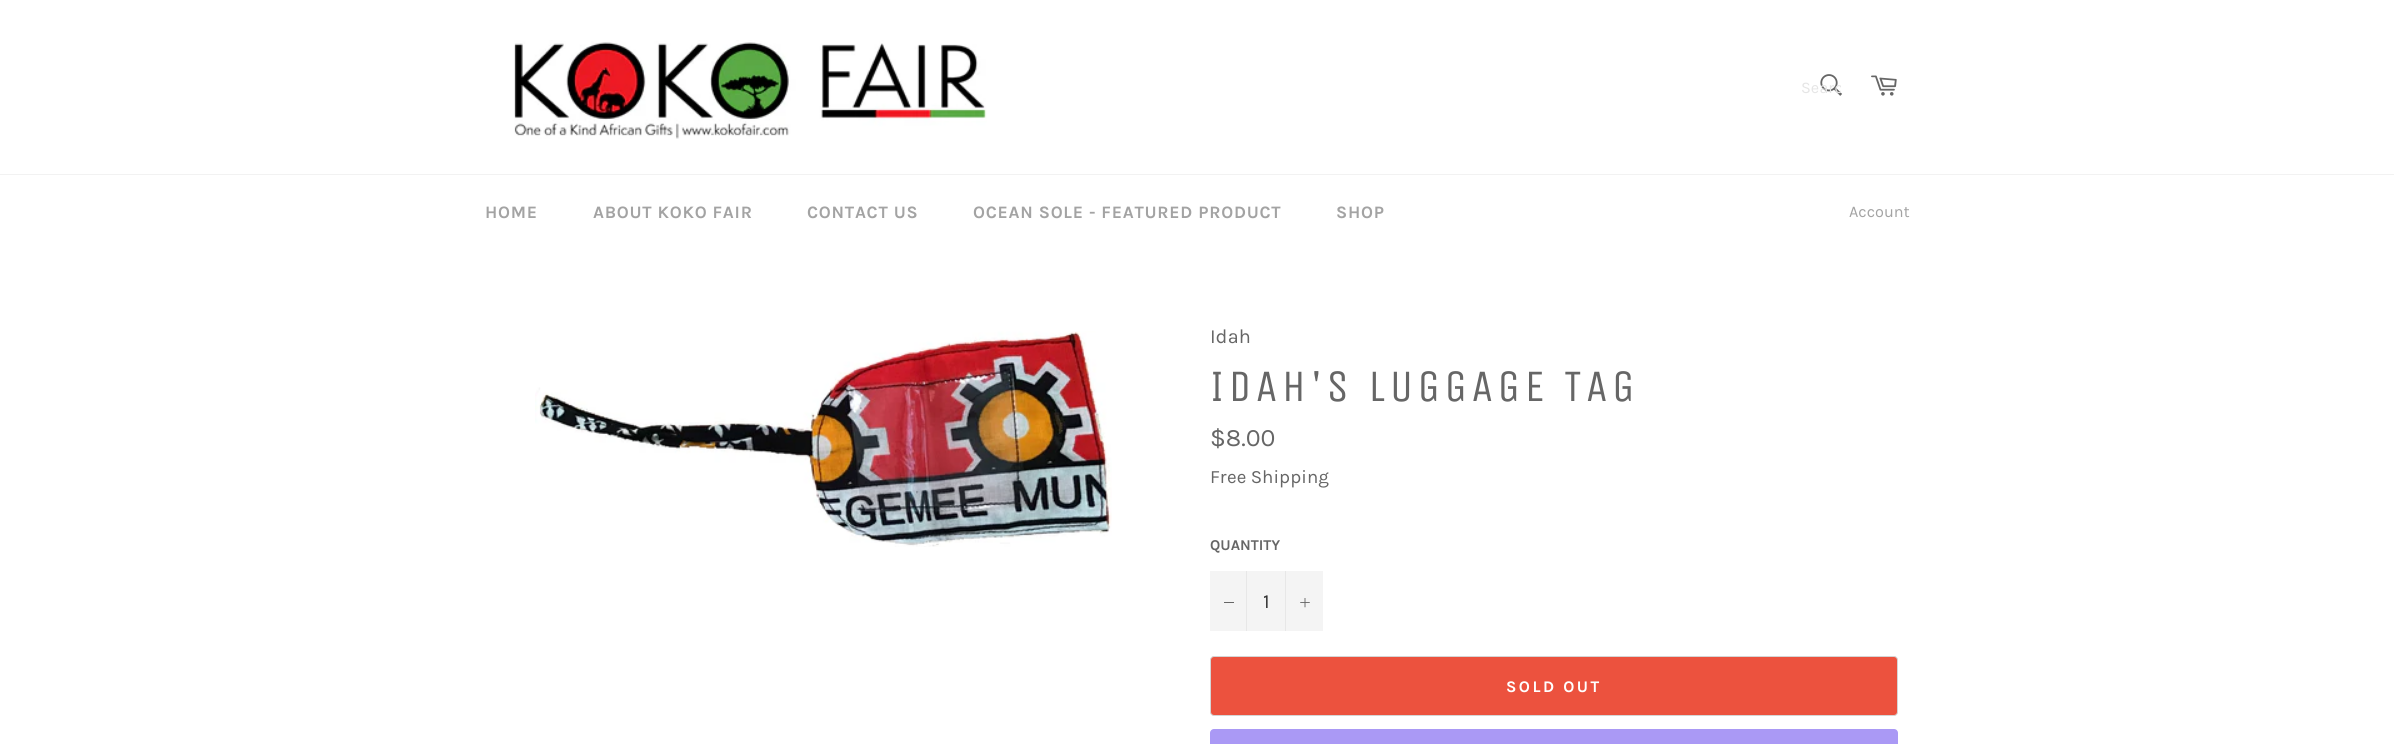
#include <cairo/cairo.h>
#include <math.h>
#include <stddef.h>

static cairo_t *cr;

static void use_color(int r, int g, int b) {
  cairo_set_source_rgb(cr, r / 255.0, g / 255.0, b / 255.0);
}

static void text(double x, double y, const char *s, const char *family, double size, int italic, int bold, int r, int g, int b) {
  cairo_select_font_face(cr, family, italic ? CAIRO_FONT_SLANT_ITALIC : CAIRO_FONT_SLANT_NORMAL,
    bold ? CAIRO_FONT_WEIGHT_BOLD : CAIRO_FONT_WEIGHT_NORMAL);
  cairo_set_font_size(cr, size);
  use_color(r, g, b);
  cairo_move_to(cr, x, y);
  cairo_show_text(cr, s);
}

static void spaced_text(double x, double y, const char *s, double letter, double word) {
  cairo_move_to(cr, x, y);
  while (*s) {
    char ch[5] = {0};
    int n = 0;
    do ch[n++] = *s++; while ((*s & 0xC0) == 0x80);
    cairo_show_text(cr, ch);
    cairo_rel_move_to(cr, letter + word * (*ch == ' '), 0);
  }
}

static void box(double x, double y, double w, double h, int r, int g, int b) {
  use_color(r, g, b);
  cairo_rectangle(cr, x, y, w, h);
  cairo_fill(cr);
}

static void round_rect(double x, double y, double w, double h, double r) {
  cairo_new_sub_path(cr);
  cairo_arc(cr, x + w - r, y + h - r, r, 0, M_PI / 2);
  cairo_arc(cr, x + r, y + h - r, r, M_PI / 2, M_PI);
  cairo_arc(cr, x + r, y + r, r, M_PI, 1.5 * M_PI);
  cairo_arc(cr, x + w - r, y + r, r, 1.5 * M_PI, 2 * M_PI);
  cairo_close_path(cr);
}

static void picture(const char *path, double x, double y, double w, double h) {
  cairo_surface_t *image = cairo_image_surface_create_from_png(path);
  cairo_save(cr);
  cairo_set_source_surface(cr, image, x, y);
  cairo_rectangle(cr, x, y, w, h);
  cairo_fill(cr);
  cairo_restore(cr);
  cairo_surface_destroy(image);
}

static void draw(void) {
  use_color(255, 255, 255);
  cairo_paint(cr);
  picture("img_01.png", 514, 40, 473, 99);
  picture("img_02.png", 1820, 74, 22, 22);
  picture("img_03.png", 1871, 75, 26, 21);
  box(0, 174, 2394, 1, 242, 242, 242);
  picture("img_04.png", 535, 331, 577, 216);
  box(1210, 571, 113, 60, 244, 244, 244);
  box(1246, 571, 1, 60, 231, 231, 231);
  box(1224, 602, 10, 1, 102, 102, 102);
  box(1285, 571, 1, 60, 231, 231, 231);
  picture("img_05.png", 1300, 598, 10, 10);
  use_color(236, 82, 62);
  round_rect(1210.5, 656.5, 687, 59, 3.5);
  cairo_fill_preserve(cr);
  use_color(213, 213, 213);
  cairo_set_line_width(cr, 1);
  cairo_stroke(cr);
  use_color(170, 153, 245);
  round_rect(1210, 729, 688, 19, 4);
  cairo_fill(cr);
  cairo_save(cr);
  cairo_rectangle(cr, 1801, 78, 40, 18);
  cairo_clip(cr);
  text(1801, 93, "Searc", "Karla", 16.25, 0, 0, 229, 229, 229);
  cairo_restore(cr);
  cairo_select_font_face(cr, "Karla", CAIRO_FONT_SLANT_NORMAL, CAIRO_FONT_WEIGHT_BOLD);
  cairo_set_font_size(cr, 17.5);
  use_color(163, 163, 163);
  spaced_text(485, 218, "HOME", 0.75, 0);
  spaced_text(593, 218, "ABOUT KOKO FAIR", 0.75, 0);
  spaced_text(807, 218, "CONTACT US", 0.75, 0);
  spaced_text(973, 218, "OCEAN SOLE - FEATURED PRODUCT", 0.75, 0);
  spaced_text(1336, 218, "SHOP", 0.75, 0);
  text(1849, 217, "Account", "Karla", 16.25, 0, 0, 163, 163, 163);
  text(1210, 343, "Idah", "Karla", 20, 0, 0, 102, 102, 102);
  cairo_select_font_face(cr, "Unica One", CAIRO_FONT_SLANT_NORMAL, CAIRO_FONT_WEIGHT_NORMAL);
  cairo_set_font_size(cr, 45);
  spaced_text(1210, 401, "IDAH'S LUGGAGE TAG", 4.5, 0);
  text(1210, 446, "$8.00", "Karla", 25, 0, 0, 102, 102, 102);
  text(1210, 483, "Free Shipping", "Karla", 18.75, 0, 0, 102, 102, 102);
  text(1210, 550, "QUANTITY", "Karla", 15, 0, 1, 102, 102, 102);
  text(1263, 608, "1", "Karla", 20, 0, 0, 51, 51, 51);
  cairo_select_font_face(cr, "Karla", CAIRO_FONT_SLANT_NORMAL, CAIRO_FONT_WEIGHT_BOLD);
  cairo_set_font_size(cr, 16.25);
  use_color(255, 255, 255);
  spaced_text(1506, 692, "SOLD OUT", 2.5, 0);
}

int main(void) {
  cairo_surface_t *surface = cairo_image_surface_create(CAIRO_FORMAT_RGB24, 2394, 744);
  cr = cairo_create(surface);
  cairo_font_options_t *options = cairo_font_options_create();
  cairo_font_options_set_hint_metrics(options, CAIRO_HINT_METRICS_OFF);
  cairo_font_options_set_hint_style(options, CAIRO_HINT_STYLE_NONE);
  cairo_set_font_options(cr, options);
  cairo_set_miter_limit(cr, 4);
  draw();
  cairo_surface_write_to_png(surface, "out.png");
  cairo_font_options_destroy(options);
  cairo_destroy(cr);
  cairo_surface_destroy(surface);
  return 0;
}
